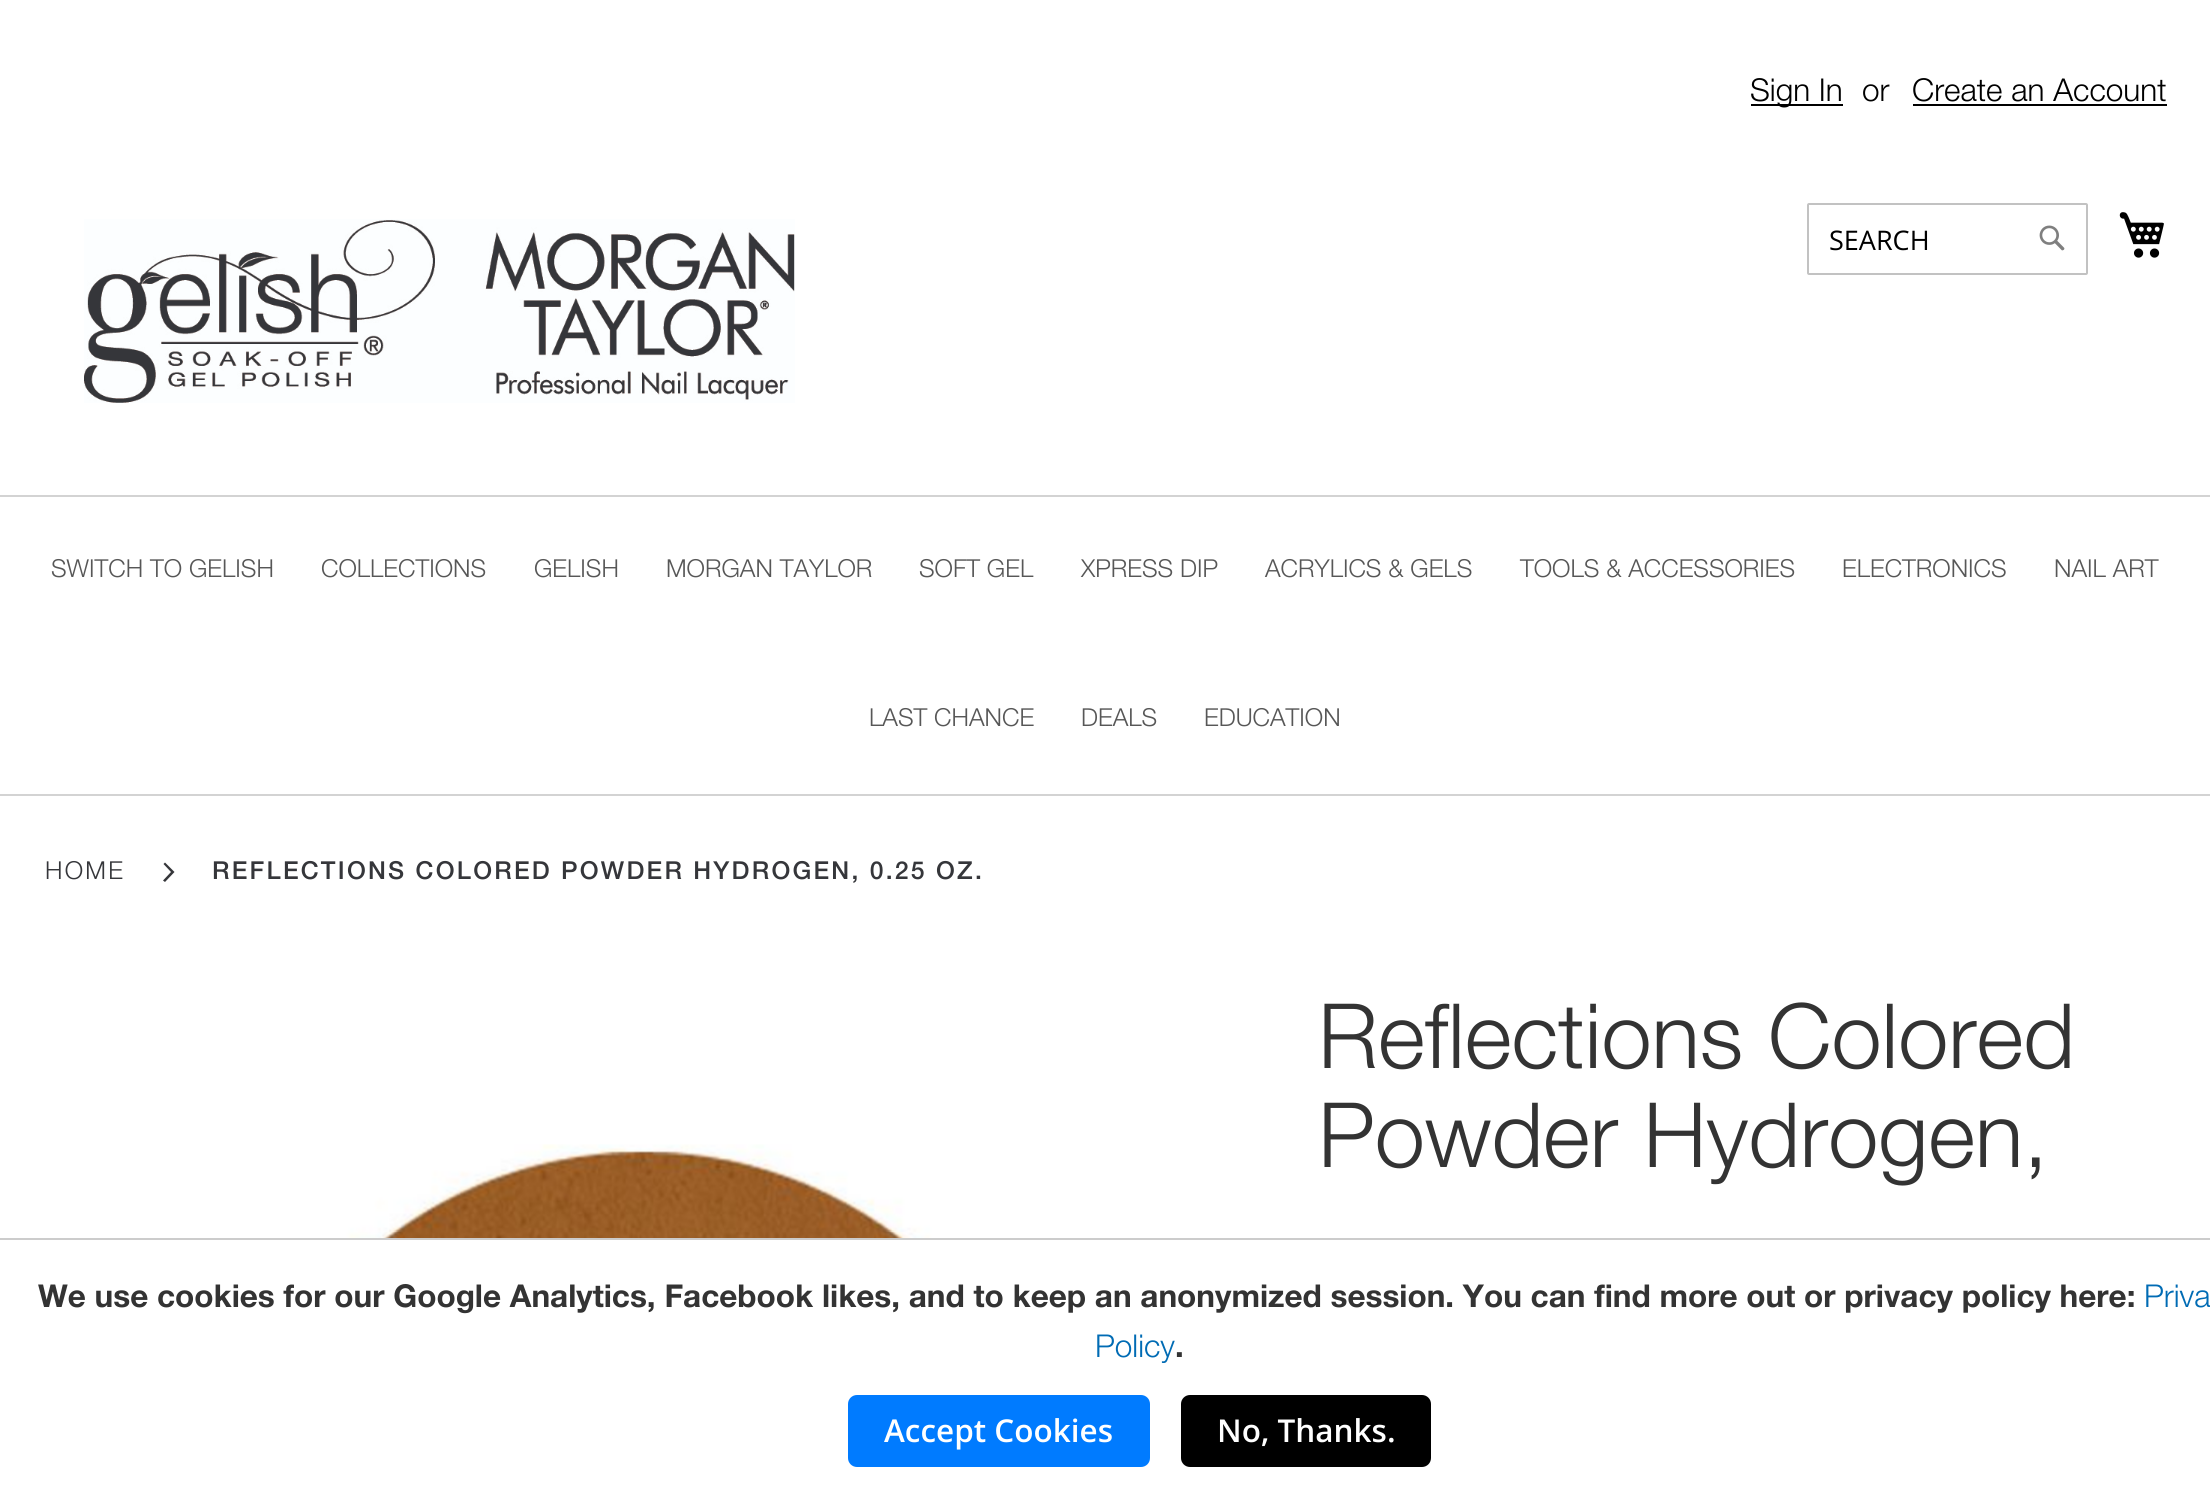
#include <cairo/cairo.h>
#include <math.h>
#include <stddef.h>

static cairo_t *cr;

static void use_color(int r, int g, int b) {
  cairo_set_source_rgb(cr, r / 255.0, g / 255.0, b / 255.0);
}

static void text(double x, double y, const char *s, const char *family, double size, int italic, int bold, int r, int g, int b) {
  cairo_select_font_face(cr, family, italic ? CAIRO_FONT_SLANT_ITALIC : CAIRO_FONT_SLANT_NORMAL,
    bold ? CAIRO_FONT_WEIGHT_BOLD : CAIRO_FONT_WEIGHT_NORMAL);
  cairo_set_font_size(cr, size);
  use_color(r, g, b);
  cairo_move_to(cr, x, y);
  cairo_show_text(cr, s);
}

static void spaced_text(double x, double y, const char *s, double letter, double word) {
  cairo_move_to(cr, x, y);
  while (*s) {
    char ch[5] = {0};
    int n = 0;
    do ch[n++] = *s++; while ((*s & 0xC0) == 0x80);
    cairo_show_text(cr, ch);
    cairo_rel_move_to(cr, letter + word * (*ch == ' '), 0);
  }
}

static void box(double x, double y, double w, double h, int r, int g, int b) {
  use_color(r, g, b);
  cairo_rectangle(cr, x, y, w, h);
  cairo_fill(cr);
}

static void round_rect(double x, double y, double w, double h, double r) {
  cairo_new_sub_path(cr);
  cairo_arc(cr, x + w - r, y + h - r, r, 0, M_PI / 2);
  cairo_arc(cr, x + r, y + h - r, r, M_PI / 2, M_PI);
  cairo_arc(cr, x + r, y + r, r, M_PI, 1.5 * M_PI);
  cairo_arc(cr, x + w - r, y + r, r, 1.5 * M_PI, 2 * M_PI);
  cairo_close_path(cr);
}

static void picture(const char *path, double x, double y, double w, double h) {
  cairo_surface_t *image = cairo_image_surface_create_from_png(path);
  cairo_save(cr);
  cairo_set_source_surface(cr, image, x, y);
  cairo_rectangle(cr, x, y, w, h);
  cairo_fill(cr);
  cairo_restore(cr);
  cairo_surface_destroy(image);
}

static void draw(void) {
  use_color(255, 255, 255);
  cairo_paint(cr);
  box(1751, 104, 92, 2, 0, 0, 0);
  box(1913, 104, 254, 2, 0, 0, 0);
  picture("img_01.png", 84, 219, 711, 184);
  round_rect(1808, 204, 279, 70, 1);
  use_color(194, 194, 194);
  cairo_stroke(cr);
  picture("img_02.png", 2039, 225, 26, 26);
  picture("img_03.png", 2119, 212, 45, 46);
  box(0, 495, 2210, 2, 211, 211, 211);
  box(0, 794, 2210, 2, 211, 211, 211);
  use_color(53, 54, 58);
  cairo_new_path(cr);
  cairo_move_to(cr, 174.5, 872);
  cairo_line_to(cr, 165, 862.5);
  cairo_line_to(cr, 163.5, 864);
  cairo_line_to(cr, 171, 872);
  cairo_line_to(cr, 163, 880.5);
  cairo_line_to(cr, 165, 882);
  cairo_close_path(cr);
  cairo_fill(cr);
  picture("img_04.png", 211, 1144, 858, 94);
  box(0, 1238, 2210, 2, 204, 204, 204);
  use_color(0, 123, 255);
  round_rect(848, 1395, 302, 72, 9);
  cairo_fill(cr);
  use_color(0, 0, 0);
  round_rect(1181, 1395, 250, 72, 9);
  cairo_fill(cr);
  text(1750, 101, "Sign In", "Helvetica Neue Light", 31.5, 0, 0, 0, 0, 0);
  text(1862, 101, "or", "Helvetica Neue Light", 31.5, 0, 0, 0, 0, 0);
  text(1912, 101, "Create an Account", "Helvetica Neue Light", 31.5, 0, 0, 0, 0, 0);
  text(1829, 250, "SEARCH", "Open Sans", 27, 0, 0, 0, 0, 0);
  text(51, 577, "SWITCH TO GELISH", "Helvetica Neue Light", 24.75, 0, 0, 87, 87, 87);
  text(321, 577, "COLLECTIONS", "Helvetica Neue Light", 24.75, 0, 0, 87, 87, 87);
  text(534, 577, "GELISH", "Helvetica Neue Light", 24.75, 0, 0, 87, 87, 87);
  text(666, 577, "MORGAN TAYLOR", "Helvetica Neue Light", 24.75, 0, 0, 87, 87, 87);
  text(919, 577, "SOFT GEL", "Helvetica Neue Light", 24.75, 0, 0, 87, 87, 87);
  text(1081, 577, "XPRESS DIP", "Helvetica Neue Light", 24.75, 0, 0, 87, 87, 87);
  text(1265, 577, "ACRYLICS & GELS", "Helvetica Neue Light", 24.75, 0, 0, 87, 87, 87);
  text(1520, 577, "TOOLS & ACCESSORIES", "Helvetica Neue Light", 24.75, 0, 0, 87, 87, 87);
  text(1842, 577, "ELECTRONICS", "Helvetica Neue Light", 24.75, 0, 0, 87, 87, 87);
  text(2054, 577, "NAIL ART", "Helvetica Neue Light", 24.75, 0, 0, 87, 87, 87);
  text(869, 726, "LAST CHANCE", "Helvetica Neue Light", 24.75, 0, 0, 87, 87, 87);
  text(1081, 726, "DEALS", "Helvetica Neue Light", 24.75, 0, 0, 87, 87, 87);
  text(1204, 726, "EDUCATION", "Helvetica Neue Light", 24.75, 0, 0, 87, 87, 87);
  use_color(53, 54, 58);
  spaced_text(45, 879, "HOME", 2.25, 0);
  cairo_select_font_face(cr, "Helvetica Neue Medium", CAIRO_FONT_SLANT_NORMAL, CAIRO_FONT_WEIGHT_NORMAL);
  spaced_text(212, 879, "REFLECTIONS COLORED POWDER HYDROGEN, 0.25 OZ.", 2.25, 0);
  text(1318, 1068, "Reflections Colored", "Helvetica Neue Light", 90, 0, 0, 51, 51, 51);
  text(1318, 1167, "Powder Hydrogen,", "Helvetica Neue Light", 90, 0, 0, 51, 51, 51);
  text(38, 1307, "We use cookies for our Google Analytics, Facebook likes, and to keep an anonymized session. You can find more out or privacy policy here:", "Helvetica Neue", 31.5, 0, 1, 51, 51, 51);
  text(2144, 1307, "Priva", "Helvetica Neue Light", 31.5, 0, 0, 0, 107, 180);
  text(1095, 1357, "Policy", "Helvetica Neue Light", 31.5, 0, 0, 0, 107, 180);
  text(1175, 1357, ".", "Helvetica Neue", 31.5, 0, 1, 51, 51, 51);
  text(884, 1442, "Accept Cookies", "Open Sans SemiBold", 31.5, 0, 0, 255, 255, 255);
  text(1217, 1442, "No, Thanks.", "Open Sans SemiBold", 31.5, 0, 0, 255, 255, 255);
}

int main(void) {
  cairo_surface_t *surface = cairo_image_surface_create(CAIRO_FORMAT_RGB24, 2210, 1500);
  cr = cairo_create(surface);
  cairo_font_options_t *options = cairo_font_options_create();
  cairo_font_options_set_hint_metrics(options, CAIRO_HINT_METRICS_OFF);
  cairo_font_options_set_hint_style(options, CAIRO_HINT_STYLE_NONE);
  cairo_set_font_options(cr, options);
  cairo_set_miter_limit(cr, 4);
  draw();
  cairo_surface_write_to_png(surface, "out.png");
  cairo_font_options_destroy(options);
  cairo_destroy(cr);
  cairo_surface_destroy(surface);
  return 0;
}
